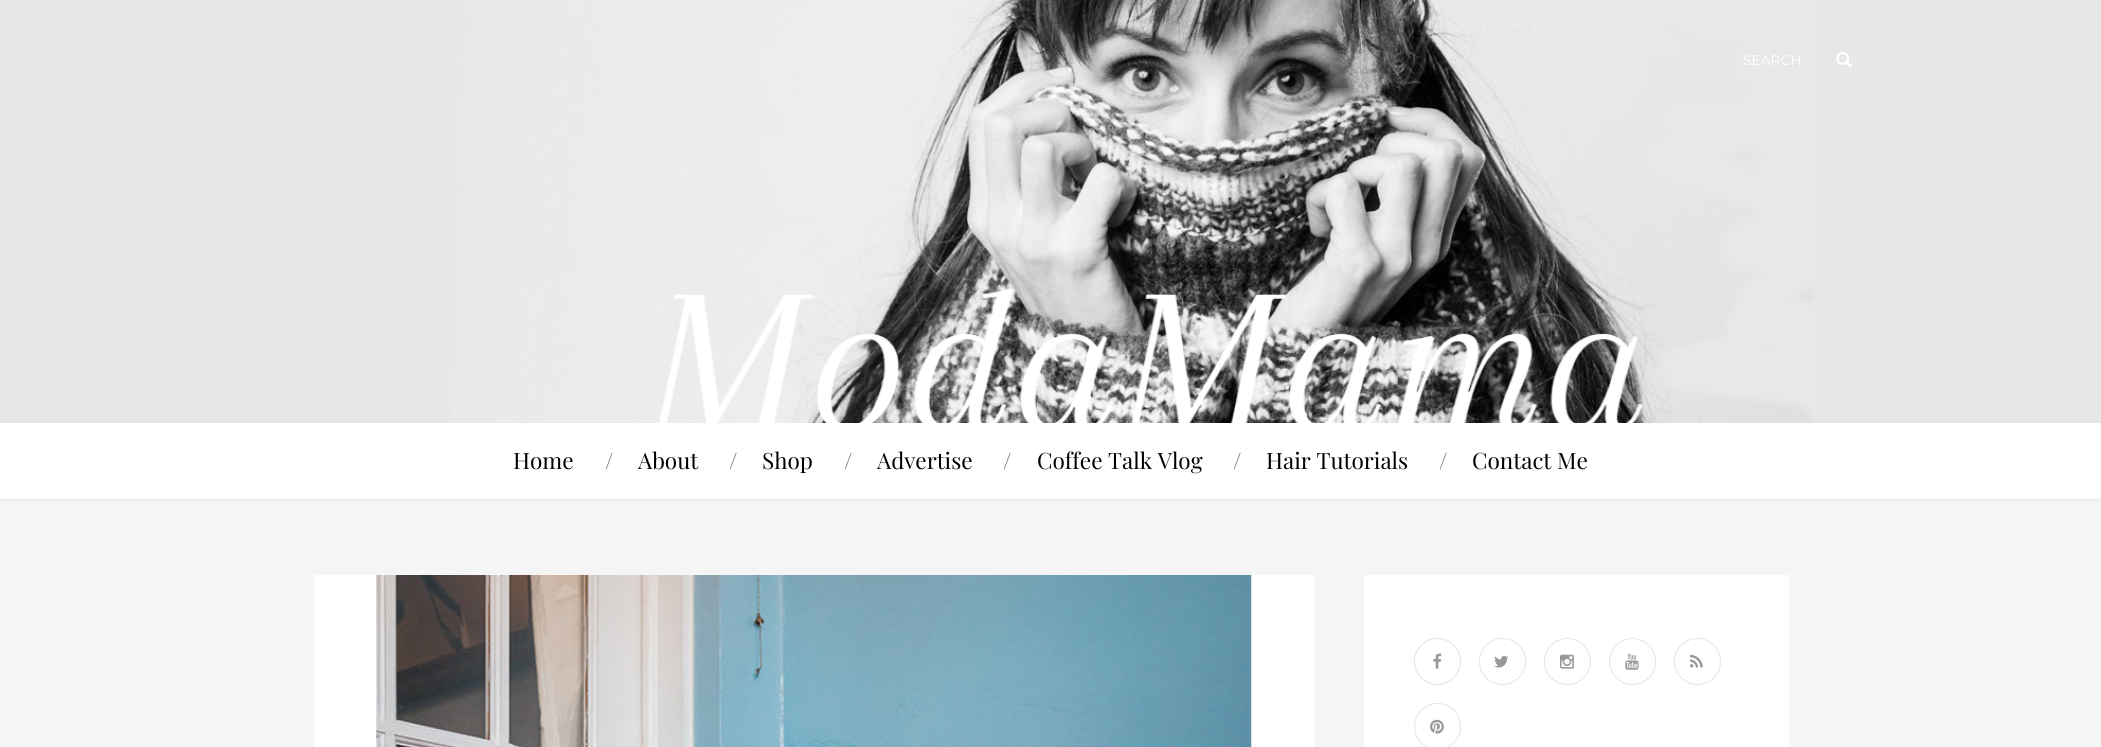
#include <cairo/cairo.h>
#include <math.h>
#include <stddef.h>

static cairo_t *cr;

static void use_color(int r, int g, int b) {
  cairo_set_source_rgb(cr, r / 255.0, g / 255.0, b / 255.0);
}

static void text(double x, double y, const char *s, const char *family, double size, int italic, int bold, int r, int g, int b) {
  cairo_select_font_face(cr, family, italic ? CAIRO_FONT_SLANT_ITALIC : CAIRO_FONT_SLANT_NORMAL,
    bold ? CAIRO_FONT_WEIGHT_BOLD : CAIRO_FONT_WEIGHT_NORMAL);
  cairo_set_font_size(cr, size);
  use_color(r, g, b);
  cairo_move_to(cr, x, y);
  cairo_show_text(cr, s);
}

static void box(double x, double y, double w, double h, int r, int g, int b) {
  use_color(r, g, b);
  cairo_rectangle(cr, x, y, w, h);
  cairo_fill(cr);
}

static void picture(const char *path, double x, double y, double w, double h) {
  cairo_surface_t *image = cairo_image_surface_create_from_png(path);
  cairo_save(cr);
  cairo_set_source_surface(cr, image, x, y);
  cairo_rectangle(cr, x, y, w, h);
  cairo_fill(cr);
  cairo_restore(cr);
  cairo_surface_destroy(image);
}

static void draw(void) {
  use_color(245, 245, 245);
  cairo_paint(cr);
  box(0, 500, 2101, 1, 233, 233, 233);
  box(0, 0, 2101, 423, 231, 231, 231);
  picture("img_01.png", 451, 0, 1364, 423);
  picture("img_02.png", 1836, 52, 16, 16);
  box(0, 423, 2101, 75, 255, 255, 255);
  box(0, 498, 2101, 2, 242, 242, 242);
  box(314, 575, 1000, 172, 255, 255, 255);
  picture("img_03.png", 376, 575, 876, 172);
  box(1364, 575, 425, 172, 255, 255, 255);
  cairo_arc(cr, 1437.5, 661.5, 23, 0, 2 * M_PI);
  use_color(228, 228, 228);
  cairo_set_line_width(cr, 1);
  cairo_stroke(cr);
  picture("img_04.png", 1433, 653, 9, 16);
  cairo_arc(cr, 1502.5, 661.5, 23, 0, 2 * M_PI);
  cairo_stroke(cr);
  picture("img_05.png", 1494, 656, 15, 12);
  cairo_arc(cr, 1567.5, 661.5, 23, 0, 2 * M_PI);
  cairo_stroke(cr);
  picture("img_06.png", 1560, 654, 14, 15);
  cairo_arc(cr, 1632.5, 661.5, 23, 0, 2 * M_PI);
  cairo_stroke(cr);
  picture("img_07.png", 1625, 653, 14, 17);
  cairo_arc(cr, 1697.5, 661.5, 23, 0, 2 * M_PI);
  cairo_stroke(cr);
  picture("img_08.png", 1690, 654, 13, 14);
  cairo_arc(cr, 1437.5, 726.5, 23, 0, 2 * M_PI);
  cairo_stroke(cr);
  picture("img_09.png", 1430, 719, 14, 15);
  text(1743, 65, "SEARCH", "Montserrat", 13.75, 0, 0, 255, 255, 255);
  text(513, 469, "Home", "Playfair Display", 22.5, 0, 0, 0, 0, 0);
  text(605, 469, "/", "Playfair Display", 22.5, 0, 0, 102, 102, 102);
  text(638, 469, "About", "Playfair Display", 22.5, 0, 0, 0, 0, 0);
  text(729, 469, "/", "Playfair Display", 22.5, 0, 0, 102, 102, 102);
  text(762, 469, "Shop", "Playfair Display", 22.5, 0, 0, 0, 0, 0);
  text(844, 469, "/", "Playfair Display", 22.5, 0, 0, 102, 102, 102);
  text(877, 469, "Advertise", "Playfair Display", 22.5, 0, 0, 0, 0, 0);
  text(1003, 469, "/", "Playfair Display", 22.5, 0, 0, 102, 102, 102);
  text(1037, 469, "Coffee Talk Vlog", "Playfair Display", 22.5, 0, 0, 0, 0, 0);
  text(1233, 469, "/", "Playfair Display", 22.5, 0, 0, 102, 102, 102);
  text(1266, 469, "Hair Tutorials", "Playfair Display", 22.5, 0, 0, 0, 0, 0);
  text(1439, 469, "/", "Playfair Display", 22.5, 0, 0, 102, 102, 102);
  text(1472, 469, "Contact Me", "Playfair Display", 22.5, 0, 0, 0, 0, 0);
}

int main(void) {
  cairo_surface_t *surface = cairo_image_surface_create(CAIRO_FORMAT_RGB24, 2101, 747);
  cr = cairo_create(surface);
  cairo_font_options_t *options = cairo_font_options_create();
  cairo_font_options_set_hint_metrics(options, CAIRO_HINT_METRICS_OFF);
  cairo_font_options_set_hint_style(options, CAIRO_HINT_STYLE_NONE);
  cairo_set_font_options(cr, options);
  cairo_set_miter_limit(cr, 4);
  draw();
  cairo_surface_write_to_png(surface, "out.png");
  cairo_font_options_destroy(options);
  cairo_destroy(cr);
  cairo_surface_destroy(surface);
  return 0;
}
